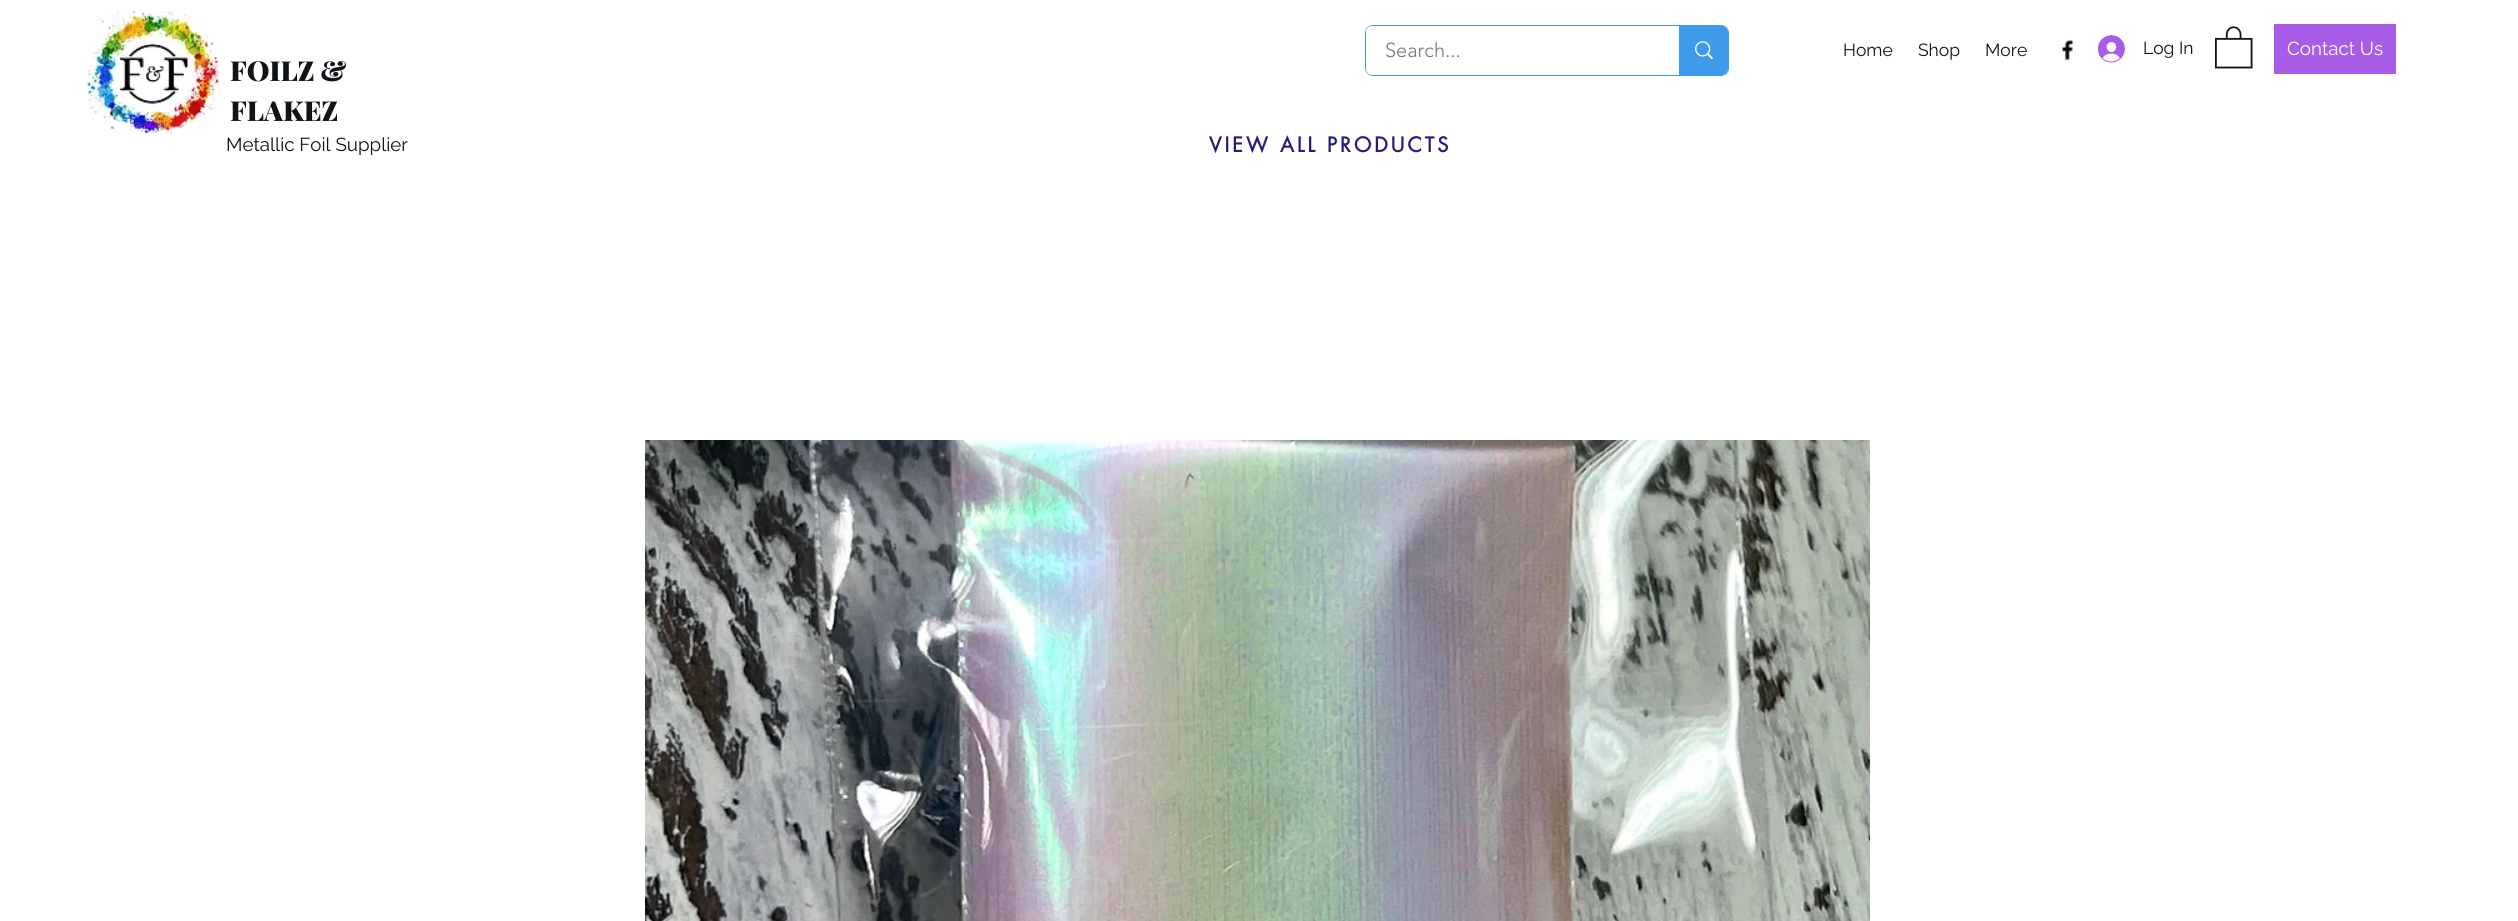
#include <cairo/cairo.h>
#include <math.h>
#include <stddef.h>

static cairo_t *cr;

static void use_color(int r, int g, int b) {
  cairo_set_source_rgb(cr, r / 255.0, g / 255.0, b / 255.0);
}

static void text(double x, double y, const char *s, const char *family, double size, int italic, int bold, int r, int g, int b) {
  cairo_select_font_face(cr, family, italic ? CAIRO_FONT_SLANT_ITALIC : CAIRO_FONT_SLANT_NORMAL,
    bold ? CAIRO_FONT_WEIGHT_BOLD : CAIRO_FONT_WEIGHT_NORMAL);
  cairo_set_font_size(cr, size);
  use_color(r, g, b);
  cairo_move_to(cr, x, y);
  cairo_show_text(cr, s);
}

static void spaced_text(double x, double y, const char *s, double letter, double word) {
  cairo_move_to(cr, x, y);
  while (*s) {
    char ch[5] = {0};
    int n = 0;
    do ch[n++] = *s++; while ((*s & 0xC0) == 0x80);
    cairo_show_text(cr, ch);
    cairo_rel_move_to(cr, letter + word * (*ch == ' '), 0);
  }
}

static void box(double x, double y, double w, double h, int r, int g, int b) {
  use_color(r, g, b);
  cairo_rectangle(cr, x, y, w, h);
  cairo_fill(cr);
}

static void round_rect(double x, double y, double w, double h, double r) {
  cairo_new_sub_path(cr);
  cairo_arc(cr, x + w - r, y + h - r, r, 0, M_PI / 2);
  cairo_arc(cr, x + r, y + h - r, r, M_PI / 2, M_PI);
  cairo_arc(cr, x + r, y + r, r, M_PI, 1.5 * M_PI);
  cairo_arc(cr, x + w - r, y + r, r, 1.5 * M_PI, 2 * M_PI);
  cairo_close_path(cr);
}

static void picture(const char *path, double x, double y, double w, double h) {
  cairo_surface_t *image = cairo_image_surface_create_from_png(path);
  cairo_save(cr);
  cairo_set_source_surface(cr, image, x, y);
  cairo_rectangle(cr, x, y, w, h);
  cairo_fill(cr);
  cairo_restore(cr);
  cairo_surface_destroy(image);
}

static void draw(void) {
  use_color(255, 255, 255);
  cairo_paint(cr);
  picture("img_01.png", 87, 11, 132, 124);
  round_rect(1365.5, 25.5, 363, 50, 7.5);
  use_color(61, 155, 233);
  cairo_set_line_width(cr, 1);
  cairo_stroke(cr);
  use_color(255, 255, 255);
  round_rect(1366, 26, 362, 49, 6);
  cairo_fill(cr);
  use_color(61, 155, 233);
  cairo_new_path(cr);
  cairo_move_to(cr, 1679, 26);
  cairo_line_to(cr, 1722, 26);
  cairo_curve_to(cr, 1725.5, 26, 1728, 28.5, 1728, 32);
  cairo_line_to(cr, 1728, 69);
  cairo_curve_to(cr, 1728, 72.5, 1725.5, 75, 1722, 75);
  cairo_line_to(cr, 1679, 75);
  cairo_close_path(cr);
  cairo_fill(cr);
  picture("img_02.png", 1695, 41, 18, 19);
  picture("img_03.png", 2062, 39, 12, 22);
  picture("img_04.png", 2098, 35, 27, 28);
  picture("img_05.png", 2215, 26, 38, 43);
  box(2274, 24, 122, 50, 167, 93, 231);
  picture("img_06.png", 645, 440, 1225, 481);
  text(230, 81, "FOILZ &", "Playfair Display Black", 27.5, 0, 0, 16, 19, 23);
  text(230, 121, "FLAKEZ", "Playfair Display Black", 27.5, 0, 0, 16, 19, 23);
  text(226, 151, "Metallic Foil Supplier", "Raleway", 18.75, 0, 0, 16, 19, 23);
  text(1385, 57, "Search...", "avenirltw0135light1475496 Light", 20, 0, 0, 120, 120, 120);
  text(1843, 56, "Home", "Raleway", 17.5, 0, 0, 16, 19, 23);
  text(1918, 56, "Shop", "Raleway", 17.5, 0, 0, 16, 19, 23);
  text(1985, 56, "More", "Raleway", 17.5, 0, 0, 16, 19, 23);
  text(2143, 54, "Log In", "Raleway", 17.5, 0, 0, 16, 19, 23);
  text(2287, 55, "Contact Us", "Raleway", 18.75, 0, 0, 255, 255, 255);
  cairo_select_font_face(cr, "futura", CAIRO_FONT_SLANT_NORMAL, CAIRO_FONT_WEIGHT_BOLD);
  cairo_set_font_size(cr, 20);
  use_color(34, 31, 123);
  spaced_text(1209, 152, "VIEW ALL PRODUCTS", 3, 0);
}

int main(void) {
  cairo_surface_t *surface = cairo_image_surface_create(CAIRO_FORMAT_RGB24, 2518, 921);
  cr = cairo_create(surface);
  cairo_font_options_t *options = cairo_font_options_create();
  cairo_font_options_set_hint_metrics(options, CAIRO_HINT_METRICS_OFF);
  cairo_font_options_set_hint_style(options, CAIRO_HINT_STYLE_NONE);
  cairo_set_font_options(cr, options);
  cairo_set_miter_limit(cr, 4);
  draw();
  cairo_surface_write_to_png(surface, "out.png");
  cairo_font_options_destroy(options);
  cairo_destroy(cr);
  cairo_surface_destroy(surface);
  return 0;
}
